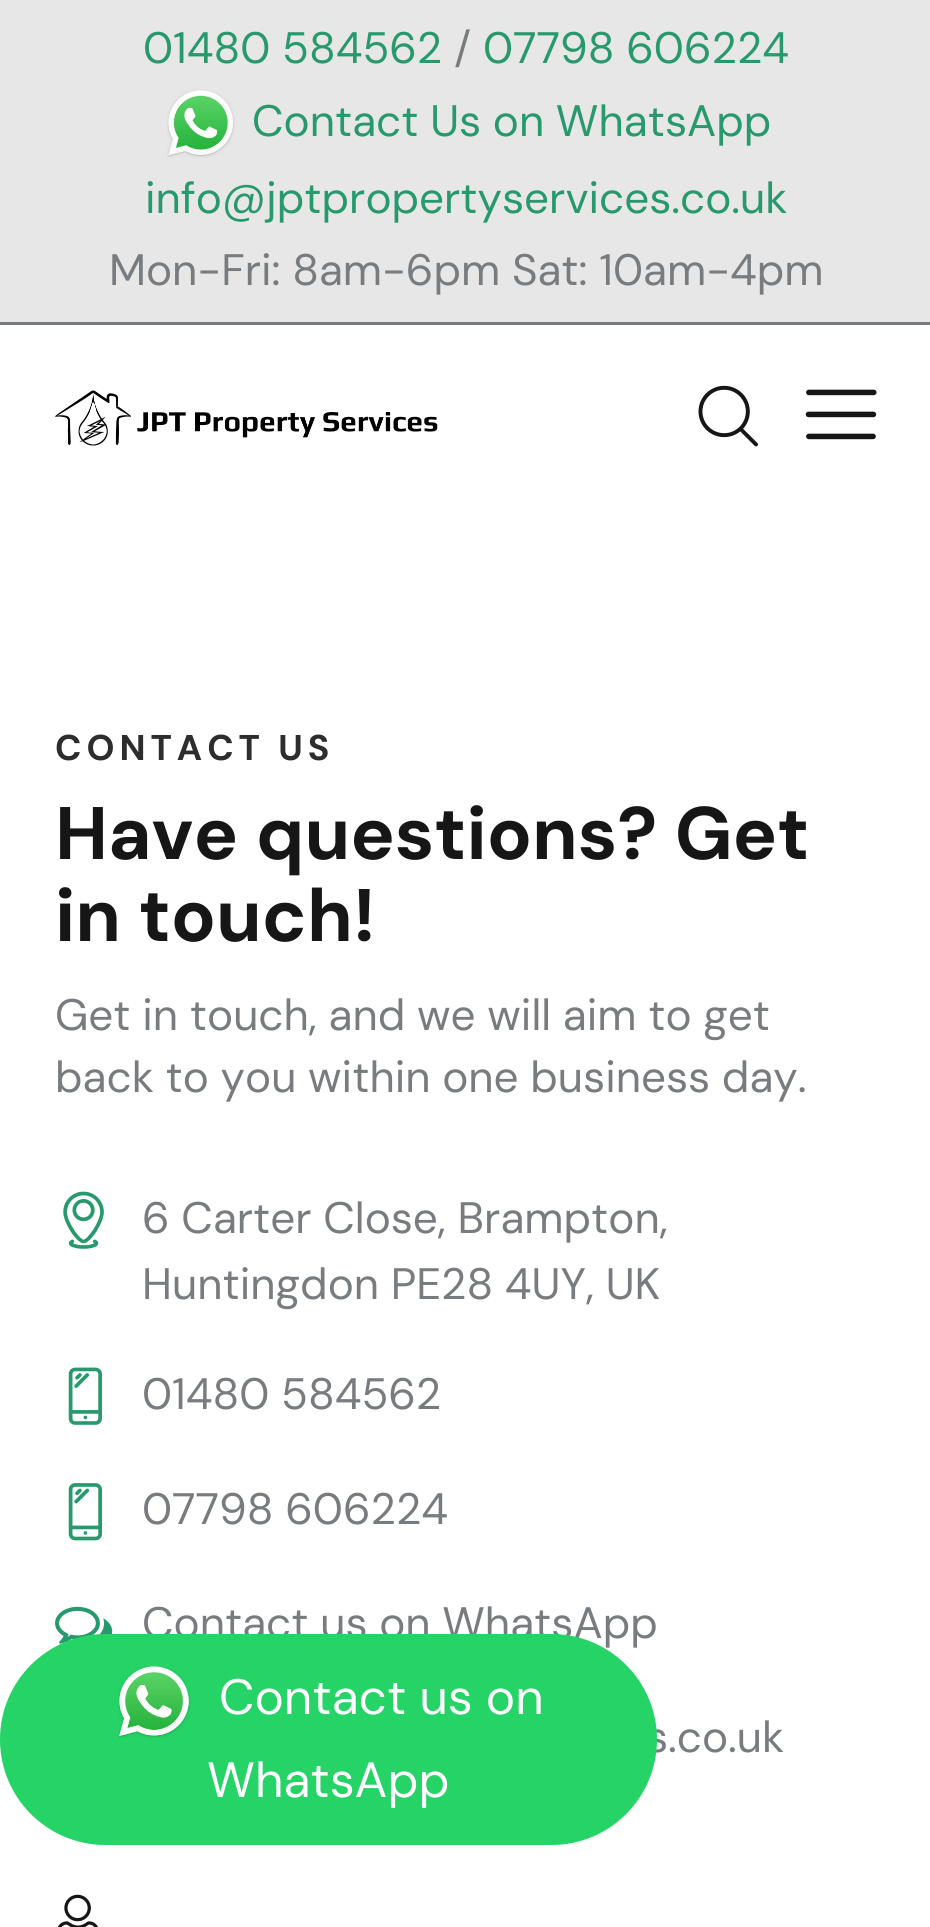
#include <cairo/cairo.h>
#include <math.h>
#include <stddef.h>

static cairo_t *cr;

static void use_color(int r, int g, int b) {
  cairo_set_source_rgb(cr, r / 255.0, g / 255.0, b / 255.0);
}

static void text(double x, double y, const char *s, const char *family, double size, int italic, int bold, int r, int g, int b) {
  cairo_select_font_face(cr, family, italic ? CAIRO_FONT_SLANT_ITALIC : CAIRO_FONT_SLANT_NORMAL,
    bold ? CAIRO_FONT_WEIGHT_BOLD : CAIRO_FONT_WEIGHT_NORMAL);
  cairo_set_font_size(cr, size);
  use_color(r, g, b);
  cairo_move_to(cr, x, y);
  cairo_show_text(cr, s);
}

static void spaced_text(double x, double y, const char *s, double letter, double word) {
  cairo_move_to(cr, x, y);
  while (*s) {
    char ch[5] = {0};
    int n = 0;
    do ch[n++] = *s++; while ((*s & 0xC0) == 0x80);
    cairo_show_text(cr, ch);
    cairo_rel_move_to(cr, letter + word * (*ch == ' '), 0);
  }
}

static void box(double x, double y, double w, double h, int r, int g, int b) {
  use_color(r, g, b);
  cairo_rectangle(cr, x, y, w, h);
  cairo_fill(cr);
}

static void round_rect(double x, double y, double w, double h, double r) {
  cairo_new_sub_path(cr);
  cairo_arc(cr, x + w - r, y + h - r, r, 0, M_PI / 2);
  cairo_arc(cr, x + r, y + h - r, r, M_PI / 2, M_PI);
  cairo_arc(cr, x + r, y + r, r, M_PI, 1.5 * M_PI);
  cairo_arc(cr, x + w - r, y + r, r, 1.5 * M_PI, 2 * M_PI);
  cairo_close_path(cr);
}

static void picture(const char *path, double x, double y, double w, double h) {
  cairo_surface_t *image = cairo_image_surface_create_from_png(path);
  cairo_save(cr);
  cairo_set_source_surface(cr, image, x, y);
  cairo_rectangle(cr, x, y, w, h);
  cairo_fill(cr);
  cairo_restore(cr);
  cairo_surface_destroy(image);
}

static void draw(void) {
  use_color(255, 255, 255);
  cairo_paint(cr);
  box(0, 0, 930, 322, 231, 231, 231);
  box(0, 322, 930, 3, 121, 124, 127);
  picture("img_01.png", 167, 89, 68, 69);
  picture("img_02.png", 55, 390, 383, 56);
  picture("img_03.png", 698, 385, 60, 62);
  picture("img_04.png", 805, 389, 72, 51);
  picture("img_05.png", 63, 1191, 41, 58);
  picture("img_06.png", 68, 1367, 34, 58);
  picture("img_07.png", 68, 1483, 34, 58);
  picture("img_08.png", 55, 1606, 58, 38);
  picture("img_09.png", 57, 1894, 42, 33);
  text(143, 63, "01480 584562", "DM Sans", 44, 0, 0, 39, 153, 108);
  text(454, 63, "/", "DM Sans", 44, 0, 0, 121, 124, 127);
  text(483, 63, "07798 606224", "DM Sans", 44, 0, 0, 39, 153, 108);
  text(252, 136, "Contact Us on WhatsApp", "DM Sans", 44, 0, 0, 39, 153, 108);
  text(145, 213, "info@jptpropertyservices.co.uk", "DM Sans", 44, 0, 0, 39, 153, 108);
  text(109, 285, "Mon-Fri: 8am-6pm Sat: 10am-4pm", "DM Sans", 44, 0, 0, 121, 124, 127);
  cairo_select_font_face(cr, "DM Sans", CAIRO_FONT_SLANT_NORMAL, CAIRO_FONT_WEIGHT_BOLD);
  cairo_set_font_size(cr, 35.75);
  use_color(46, 45, 45);
  spaced_text(55, 760, "CONTACT US", 5, 0);
  text(55, 859, "Have questions? Get", "DM Sans", 74.25, 0, 1, 23, 22, 22);
  text(55, 941, "in touch!", "DM Sans", 74.25, 0, 1, 23, 22, 22);
  text(55, 1030, "Get in touch, and we will aim to get", "DM Sans", 44, 0, 0, 121, 124, 127);
  text(55, 1092, "back to you within one business day.", "DM Sans", 44, 0, 0, 121, 124, 127);
  text(142, 1233, "6 Carter Close, Brampton,", "DM Sans", 44, 0, 0, 121, 124, 127);
  text(142, 1299, "Huntingdon PE28 4UY, UK", "DM Sans", 44, 0, 0, 121, 124, 127);
  text(142, 1409, "01480 584562", "DM Sans", 44, 0, 0, 121, 124, 127);
  text(142, 1524, "07798 606224", "DM Sans", 44, 0, 0, 121, 124, 127);
  text(142, 1638, "Contact us on WhatsApp", "DM Sans", 44, 0, 0, 121, 124, 127);
  text(646, 1752, "s.co.uk", "DM Sans", 44, 0, 0, 121, 124, 127);
  use_color(37, 211, 102);
  round_rect(0, 1634, 657, 211, 105.5);
  cairo_fill(cr);
  picture("img_10.png", 118, 1666, 73, 72);
  text(219, 1714, "Contact us on", "DM Sans", 49.5, 0, 0, 255, 255, 255);
  text(207, 1797, "WhatsApp", "DM Sans", 49.5, 0, 0, 255, 255, 255);
}

int main(void) {
  cairo_surface_t *surface = cairo_image_surface_create(CAIRO_FORMAT_RGB24, 930, 1927);
  cr = cairo_create(surface);
  cairo_font_options_t *options = cairo_font_options_create();
  cairo_font_options_set_hint_metrics(options, CAIRO_HINT_METRICS_OFF);
  cairo_font_options_set_hint_style(options, CAIRO_HINT_STYLE_NONE);
  cairo_set_font_options(cr, options);
  cairo_set_miter_limit(cr, 4);
  draw();
  cairo_surface_write_to_png(surface, "out.png");
  cairo_font_options_destroy(options);
  cairo_destroy(cr);
  cairo_surface_destroy(surface);
  return 0;
}
